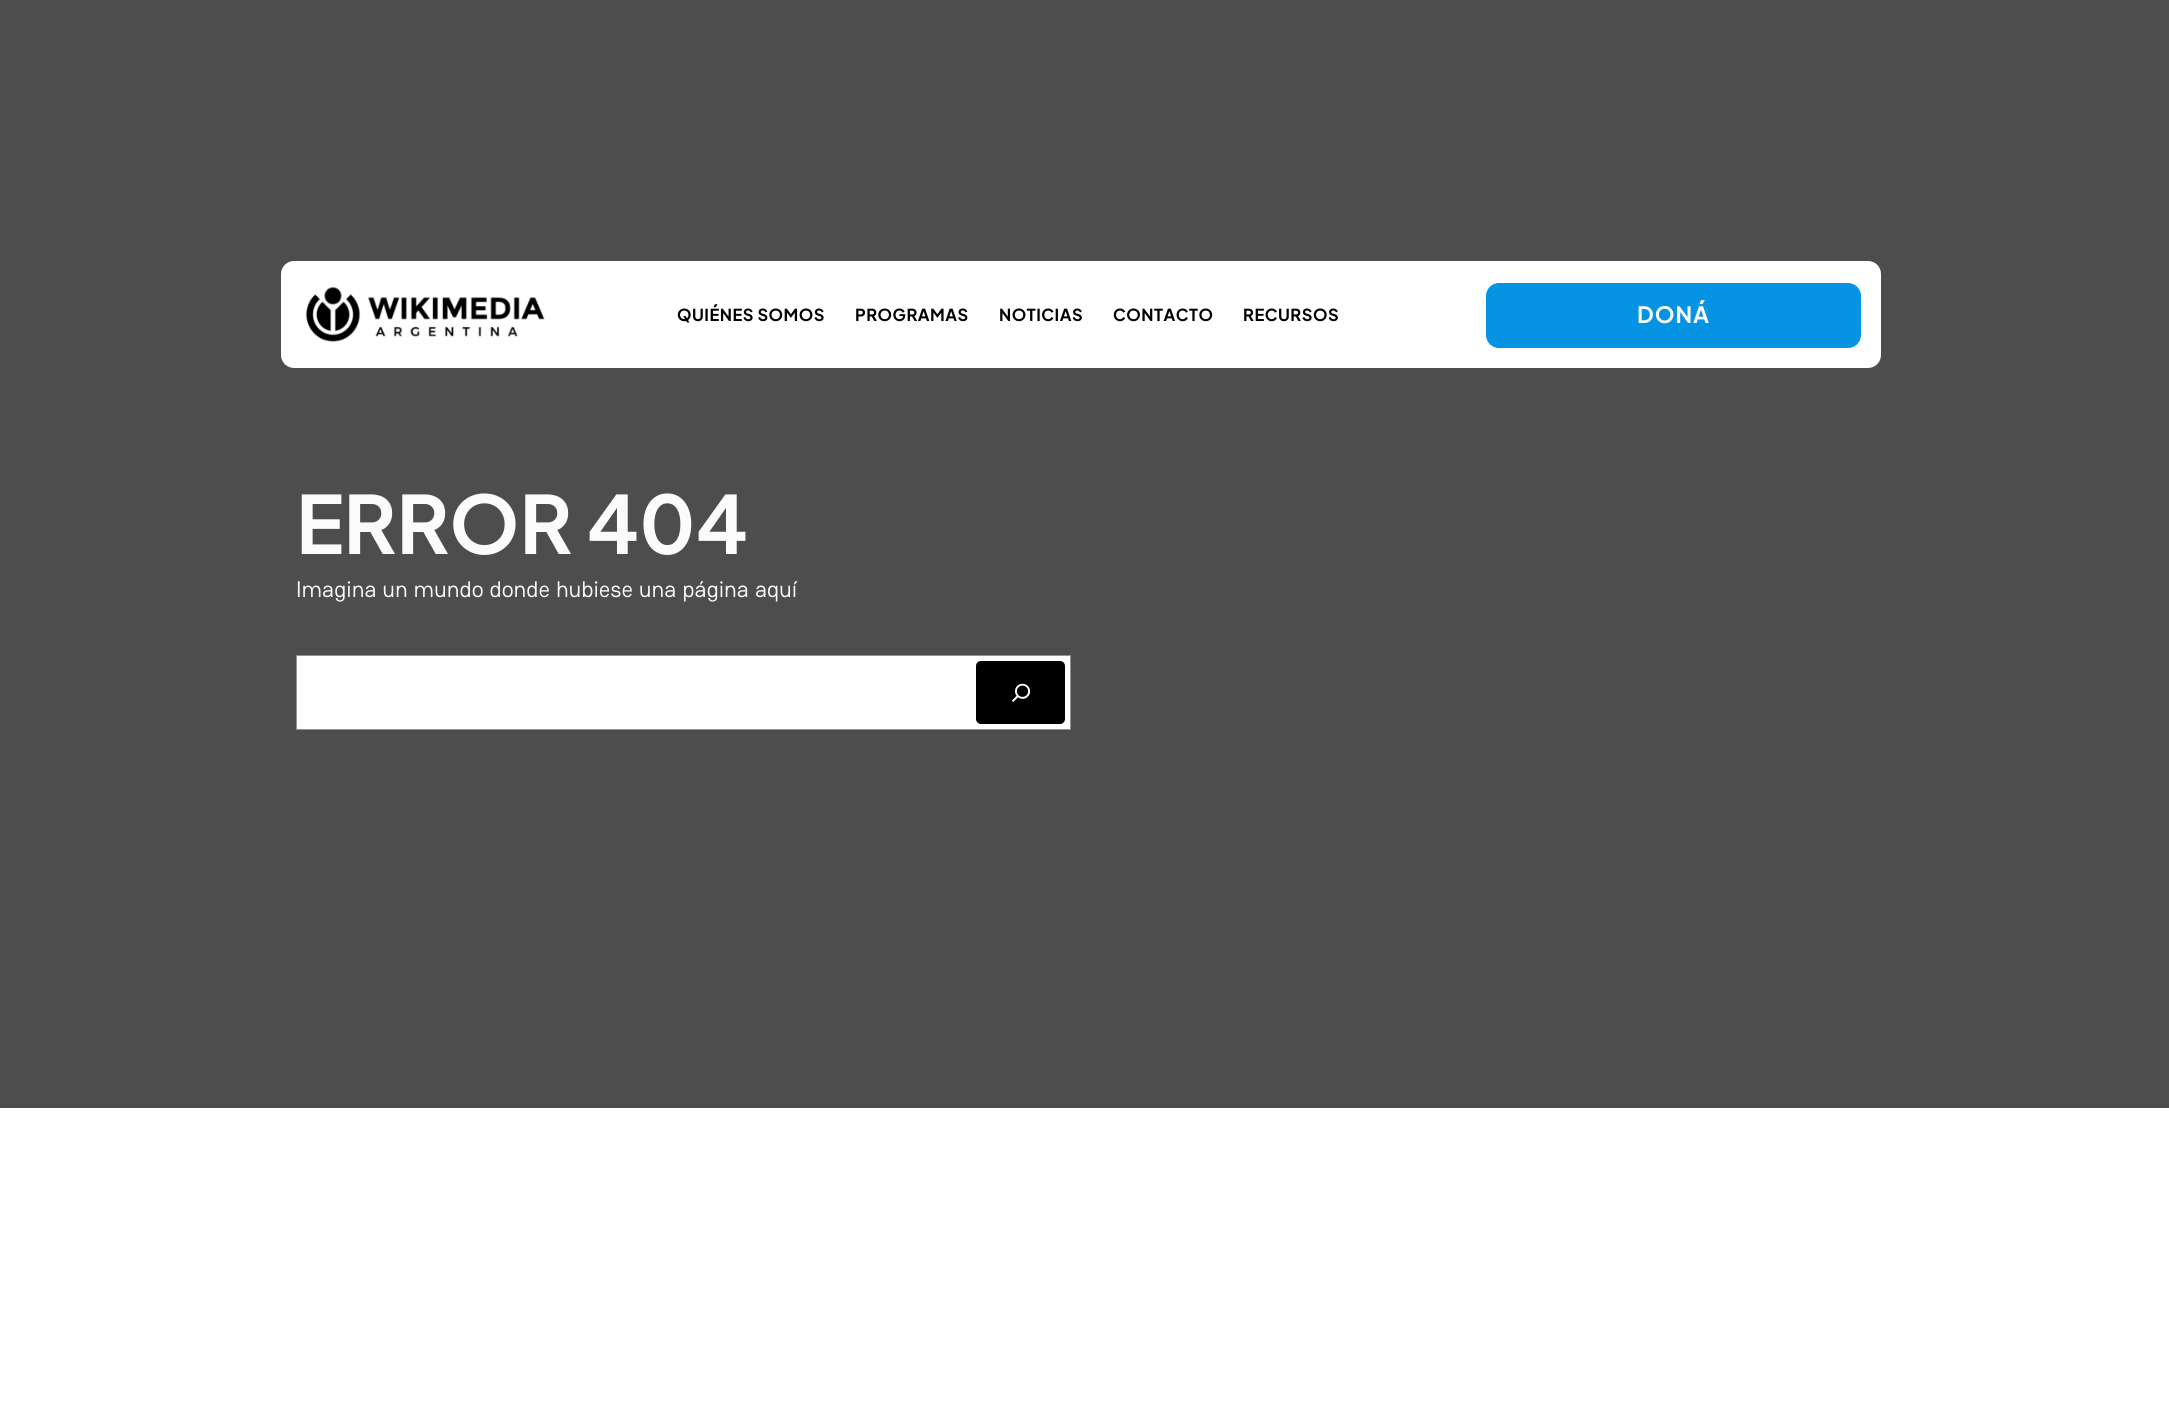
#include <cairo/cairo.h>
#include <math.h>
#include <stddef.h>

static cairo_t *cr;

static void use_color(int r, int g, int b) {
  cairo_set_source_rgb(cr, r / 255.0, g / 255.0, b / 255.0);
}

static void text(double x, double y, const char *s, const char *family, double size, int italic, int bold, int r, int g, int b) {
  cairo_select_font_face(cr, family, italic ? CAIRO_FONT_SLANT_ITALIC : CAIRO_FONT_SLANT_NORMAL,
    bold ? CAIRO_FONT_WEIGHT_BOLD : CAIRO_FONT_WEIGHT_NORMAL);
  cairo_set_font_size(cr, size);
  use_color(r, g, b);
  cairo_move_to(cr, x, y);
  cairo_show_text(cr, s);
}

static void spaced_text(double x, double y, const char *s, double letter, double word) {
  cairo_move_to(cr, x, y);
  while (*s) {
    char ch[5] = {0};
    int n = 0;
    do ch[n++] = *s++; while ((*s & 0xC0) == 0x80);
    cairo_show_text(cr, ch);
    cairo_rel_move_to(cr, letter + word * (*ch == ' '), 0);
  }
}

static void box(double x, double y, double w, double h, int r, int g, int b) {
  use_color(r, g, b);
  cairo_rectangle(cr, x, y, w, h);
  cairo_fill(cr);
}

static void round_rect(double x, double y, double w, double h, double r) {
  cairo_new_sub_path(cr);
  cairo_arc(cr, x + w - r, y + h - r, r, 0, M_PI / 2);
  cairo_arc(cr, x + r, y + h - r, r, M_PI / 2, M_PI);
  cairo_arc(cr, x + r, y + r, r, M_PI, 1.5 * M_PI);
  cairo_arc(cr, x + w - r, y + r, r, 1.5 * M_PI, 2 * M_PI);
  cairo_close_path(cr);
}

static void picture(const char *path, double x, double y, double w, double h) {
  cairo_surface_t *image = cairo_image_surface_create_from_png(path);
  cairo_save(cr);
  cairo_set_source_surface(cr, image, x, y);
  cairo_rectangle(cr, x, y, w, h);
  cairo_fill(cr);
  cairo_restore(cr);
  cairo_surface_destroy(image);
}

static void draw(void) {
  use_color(255, 255, 255);
  cairo_paint(cr);
  box(0, 0, 2169, 1108, 77, 77, 77);
  use_color(255, 255, 255);
  round_rect(281, 261, 1600, 107, 13);
  cairo_fill(cr);
  picture("img_01.png", 305, 286, 240, 56);
  use_color(6, 147, 227);
  round_rect(1486.5, 283.5, 374, 64, 12.5);
  cairo_fill_preserve(cr);
  cairo_set_line_width(cr, 1);
  cairo_stroke(cr);
  use_color(255, 255, 255);
  cairo_rectangle(cr, 296.5, 655.5, 774, 74);
  cairo_fill_preserve(cr);
  use_color(148, 148, 148);
  cairo_stroke(cr);
  use_color(0, 0, 0);
  round_rect(976, 661, 89, 63, 5);
  cairo_fill(cr);
  picture("img_02.png", 1012, 683, 19, 19);
  cairo_select_font_face(cr, "Plus Jakarta Sans", CAIRO_FONT_SLANT_NORMAL, CAIRO_FONT_WEIGHT_BOLD);
  cairo_set_font_size(cr, 16.5);
  spaced_text(677, 321, "QUIÉNES SOMOS", 0.5, 0);
  spaced_text(855, 321, "PROGRAMAS", 0.5, 0);
  spaced_text(999, 321, "NOTICIAS", 0.5, 0);
  spaced_text(1113, 321, "CONTACTO", 0.5, 0);
  spaced_text(1243, 321, "RECURSOS", 0.5, 0);
  cairo_set_font_size(cr, 22.5);
  use_color(251, 251, 251);
  spaced_text(1637, 323, "DONÁ", 1, 0);
  text(296, 554, "ERROR 404", "Plus Jakarta Sans", 80, 0, 1, 251, 251, 251);
  text(296, 597, "Imagina un mundo donde hubiese una página aquí", "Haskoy", 22.5, 0, 0, 251, 251, 251);
}

int main(void) {
  cairo_surface_t *surface = cairo_image_surface_create(CAIRO_FORMAT_RGB24, 2169, 1412);
  cr = cairo_create(surface);
  cairo_font_options_t *options = cairo_font_options_create();
  cairo_font_options_set_hint_metrics(options, CAIRO_HINT_METRICS_OFF);
  cairo_font_options_set_hint_style(options, CAIRO_HINT_STYLE_NONE);
  cairo_set_font_options(cr, options);
  cairo_set_miter_limit(cr, 4);
  draw();
  cairo_surface_write_to_png(surface, "out.png");
  cairo_font_options_destroy(options);
  cairo_destroy(cr);
  cairo_surface_destroy(surface);
  return 0;
}
